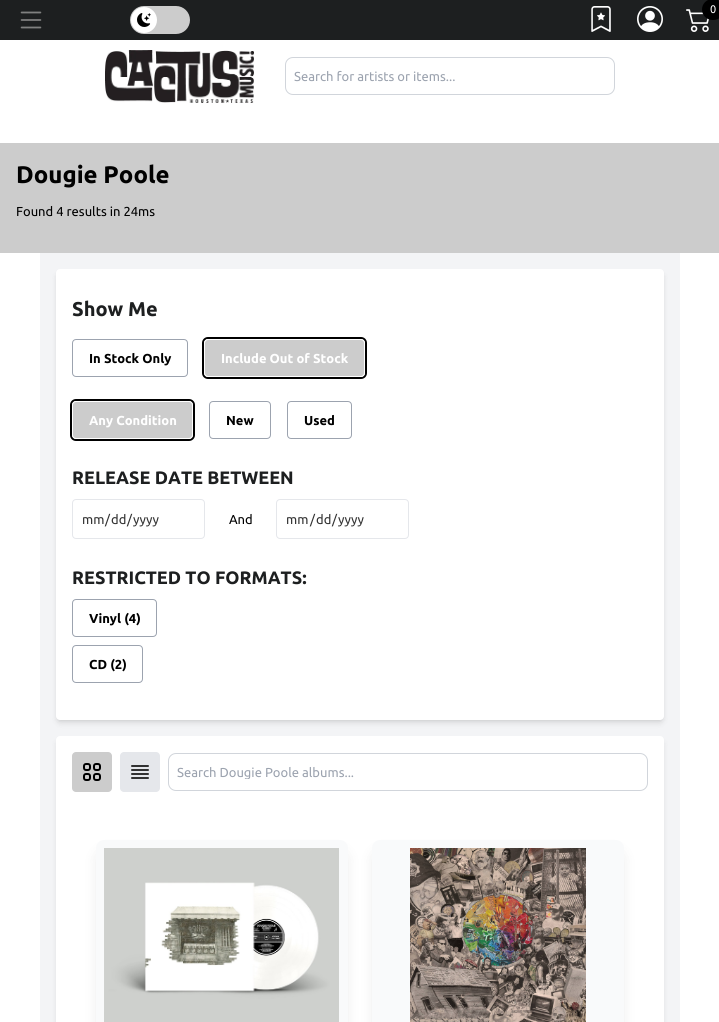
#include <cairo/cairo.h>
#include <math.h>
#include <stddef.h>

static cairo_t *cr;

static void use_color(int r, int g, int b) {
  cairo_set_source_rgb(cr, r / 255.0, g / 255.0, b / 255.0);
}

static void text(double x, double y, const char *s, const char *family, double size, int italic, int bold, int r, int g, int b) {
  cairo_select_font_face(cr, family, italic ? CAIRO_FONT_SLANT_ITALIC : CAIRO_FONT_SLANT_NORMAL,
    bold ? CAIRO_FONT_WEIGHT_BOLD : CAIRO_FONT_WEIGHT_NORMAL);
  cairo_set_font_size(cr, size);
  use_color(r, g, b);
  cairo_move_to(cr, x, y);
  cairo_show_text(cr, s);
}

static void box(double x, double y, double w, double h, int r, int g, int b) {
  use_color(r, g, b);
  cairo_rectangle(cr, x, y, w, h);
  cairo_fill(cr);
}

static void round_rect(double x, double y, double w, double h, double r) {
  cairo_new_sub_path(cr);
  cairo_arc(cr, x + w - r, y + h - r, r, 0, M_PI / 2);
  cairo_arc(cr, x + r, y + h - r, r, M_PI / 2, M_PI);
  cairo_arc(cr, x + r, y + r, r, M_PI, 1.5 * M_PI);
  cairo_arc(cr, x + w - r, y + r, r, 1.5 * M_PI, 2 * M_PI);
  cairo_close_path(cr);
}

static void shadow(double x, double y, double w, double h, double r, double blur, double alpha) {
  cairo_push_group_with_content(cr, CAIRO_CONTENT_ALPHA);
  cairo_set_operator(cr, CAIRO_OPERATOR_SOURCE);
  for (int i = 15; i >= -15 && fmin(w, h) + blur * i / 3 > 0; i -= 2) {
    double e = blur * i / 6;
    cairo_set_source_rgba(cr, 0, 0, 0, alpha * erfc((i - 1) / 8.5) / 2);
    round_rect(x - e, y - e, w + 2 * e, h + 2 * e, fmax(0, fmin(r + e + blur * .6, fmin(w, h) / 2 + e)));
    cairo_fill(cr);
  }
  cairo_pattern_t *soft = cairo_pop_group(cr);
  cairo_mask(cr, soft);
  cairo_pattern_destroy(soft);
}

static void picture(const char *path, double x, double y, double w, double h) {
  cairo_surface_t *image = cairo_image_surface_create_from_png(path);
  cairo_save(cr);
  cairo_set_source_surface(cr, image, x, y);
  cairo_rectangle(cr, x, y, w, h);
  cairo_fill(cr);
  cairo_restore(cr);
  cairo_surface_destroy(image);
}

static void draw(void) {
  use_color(255, 255, 255);
  cairo_paint(cr);
  box(0, 0, 719, 40, 29, 31, 32);
  picture("img_01.png", 20, 11, 22, 18);
  use_color(204, 204, 204);
  round_rect(130, 6, 60, 28, 14);
  cairo_fill(cr);
  use_color(255, 255, 255);
  cairo_arc(cr, 144, 20, 13, 0, 2 * M_PI);
  cairo_fill(cr);
  picture("img_02.png", 137, 13, 14, 14);
  picture("img_03.png", 591, 6, 20, 26);
  picture("img_04.png", 637, 6, 26, 26);
  picture("img_05.png", 686, 9, 23, 23);
  use_color(0, 0, 0);
  round_rect(702, -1, 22, 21, 10.5);
  cairo_fill(cr);
  picture("img_06.png", 105, 50, 149, 53);
  round_rect(285.5, 57.5, 329, 37, 7.5);
  use_color(209, 213, 219);
  cairo_set_line_width(cr, 1);
  cairo_stroke(cr);
  box(0, 143, 719, 110, 204, 204, 204);
  box(40, 253, 640, 769, 243, 244, 246);
  use_color(0, 0, 0);
  shadow(58, 273, 604, 447, 2, 2, 0.1);
  shadow(57, 274, 606, 449, 3, 3, 0.1);
  use_color(255, 255, 255);
  round_rect(56, 269, 608, 451, 4);
  cairo_fill(cr);
  round_rect(72.5, 339.5, 115, 37, 3.5);
  use_color(156, 163, 175);
  cairo_stroke(cr);
  round_rect(203, 338, 163, 40, 5);
  use_color(0, 0, 0);
  cairo_set_line_width(cr, 2);
  cairo_stroke(cr);
  use_color(204, 204, 204);
  round_rect(204.5, 339.5, 160, 37, 3.5);
  cairo_fill_preserve(cr);
  use_color(255, 255, 255);
  cairo_set_line_width(cr, 1);
  cairo_stroke(cr);
  round_rect(71, 400, 123, 40, 5);
  use_color(0, 0, 0);
  cairo_set_line_width(cr, 2);
  cairo_stroke(cr);
  use_color(204, 204, 204);
  round_rect(72.5, 401.5, 120, 37, 3.5);
  cairo_fill_preserve(cr);
  use_color(255, 255, 255);
  cairo_set_line_width(cr, 1);
  cairo_stroke(cr);
  round_rect(209.5, 401.5, 61, 37, 3.5);
  use_color(156, 163, 175);
  cairo_stroke(cr);
  round_rect(287.5, 401.5, 64, 37, 3.5);
  cairo_stroke(cr);
  round_rect(72.5, 499.5, 132, 39, 3.5);
  use_color(229, 231, 235);
  cairo_stroke(cr);
  round_rect(276.5, 499.5, 132, 39, 3.5);
  cairo_stroke(cr);
  round_rect(72.5, 599.5, 84, 37, 3.5);
  use_color(156, 163, 175);
  cairo_stroke(cr);
  round_rect(72.5, 645.5, 70, 37, 3.5);
  cairo_stroke(cr);
  use_color(0, 0, 0);
  shadow(57, 741, 606, 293, 3, 3, 0.1);
  use_color(255, 255, 255);
  round_rect(56, 736, 608, 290, 4);
  cairo_fill(cr);
  use_color(204, 204, 204);
  round_rect(72, 752, 40, 40, 4);
  cairo_fill(cr);
  picture("img_07.png", 83, 763, 18, 18);
  use_color(229, 231, 235);
  round_rect(120, 752, 40, 40, 4);
  cairo_fill(cr);
  cairo_new_path(cr);
  cairo_move_to(cr, 132, 766);
  cairo_line_to(cr, 148, 766);
  cairo_move_to(cr, 132, 770);
  cairo_line_to(cr, 148, 770);
  cairo_move_to(cr, 132, 774);
  cairo_line_to(cr, 148, 774);
  cairo_move_to(cr, 132, 778);
  cairo_line_to(cr, 148, 778);
  use_color(50, 50, 50);
  cairo_set_line_width(cr, 2);
  cairo_set_line_cap(cr, CAIRO_LINE_CAP_ROUND);
  cairo_set_line_join(cr, CAIRO_LINE_JOIN_ROUND);
  cairo_stroke(cr);
  round_rect(168.5, 753.5, 479, 37, 7.5);
  use_color(209, 213, 219);
  cairo_set_line_width(cr, 1);
  cairo_set_line_cap(cr, CAIRO_LINE_CAP_BUTT);
  cairo_set_line_join(cr, CAIRO_LINE_JOIN_MITER);
  cairo_stroke(cr);
  use_color(0, 0, 0);
  shadow(99, 853, 246, 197, 5, 7.5, 0.1);
  use_color(249, 250, 251);
  round_rect(96, 840, 252, 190, 8);
  cairo_fill(cr);
  picture("img_08.png", 104, 848, 235, 174);
  use_color(0, 0, 0);
  shadow(375, 853, 246, 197, 5, 7.5, 0.1);
  use_color(249, 250, 251);
  round_rect(372, 840, 252, 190, 8);
  cairo_fill(cr);
  picture("img_09.png", 410, 848, 176, 174);
  text(710, 13, "0", "Ubuntu", 11, 0, 0, 255, 255, 255);
  text(294, 81, "Search for artists or items...", "Ubuntu", 13, 0, 0, 156, 163, 175);
  text(16, 183, "Dougie Poole", "Ubuntu", 24, 0, 1, 0, 0, 0);
  text(16, 216, "Found 4 results in 24ms", "Ubuntu", 13, 0, 0, 0, 0, 0);
  text(72, 316, "Show Me", "Ubuntu", 20, 0, 1, 29, 31, 32);
  text(89, 363, "In Stock Only", "Ubuntu", 13, 0, 1, 0, 0, 0);
  text(221, 363, "Include Out of Stock", "Ubuntu", 13, 0, 1, 255, 255, 255);
  text(89, 425, "Any Condition", "Ubuntu", 13, 0, 1, 255, 255, 255);
  text(226, 425, "New", "Ubuntu", 13, 0, 1, 0, 0, 0);
  text(304, 425, "Used", "Ubuntu", 13, 0, 1, 0, 0, 0);
  text(72, 484, "RELEASE DATE BETWEEN", "Ubuntu", 18, 0, 1, 29, 31, 32);
  text(82, 524, "mm", "Ubuntu", 13, 0, 0, 50, 50, 50);
  text(105, 524, "/", "Ubuntu", 13, 0, 0, 50, 50, 50);
  text(111, 524, "dd", "Ubuntu", 13, 0, 0, 50, 50, 50);
  text(127, 524, "/", "Ubuntu", 13, 0, 0, 50, 50, 50);
  text(133, 524, "yyyy", "Ubuntu", 13, 0, 0, 50, 50, 50);
  text(229, 524, "And", "Ubuntu", 13, 0, 0, 0, 0, 0);
  text(286, 524, "mm", "Ubuntu", 13, 0, 0, 50, 50, 50);
  text(310, 524, "/", "Ubuntu", 13, 0, 0, 50, 50, 50);
  text(316, 524, "dd", "Ubuntu", 13, 0, 0, 50, 50, 50);
  text(332, 524, "/", "Ubuntu", 13, 0, 0, 50, 50, 50);
  text(338, 524, "yyyy", "Ubuntu", 13, 0, 0, 50, 50, 50);
  text(72, 584, "RESTRICTED TO FORMATS:", "Ubuntu", 18, 0, 1, 29, 31, 32);
  text(89, 623, "Vinyl (4)", "Ubuntu", 13, 0, 1, 0, 0, 0);
  text(89, 669, "CD (2)", "Ubuntu", 13, 0, 1, 0, 0, 0);
  cairo_save(cr);
  cairo_rectangle(cr, 177, 765, 449, 14);
  cairo_clip(cr);
  text(177, 777, "Search Dougie Poole albums...", "Ubuntu", 13, 0, 0, 156, 163, 175);
  cairo_restore(cr);
}

int main(void) {
  cairo_surface_t *surface = cairo_image_surface_create(CAIRO_FORMAT_RGB24, 719, 1022);
  cr = cairo_create(surface);
  cairo_font_options_t *options = cairo_font_options_create();
  cairo_font_options_set_hint_metrics(options, CAIRO_HINT_METRICS_OFF);
  cairo_font_options_set_hint_style(options, CAIRO_HINT_STYLE_NONE);
  cairo_set_font_options(cr, options);
  cairo_set_miter_limit(cr, 4);
  draw();
  cairo_surface_write_to_png(surface, "out.png");
  cairo_font_options_destroy(options);
  cairo_destroy(cr);
  cairo_surface_destroy(surface);
  return 0;
}
